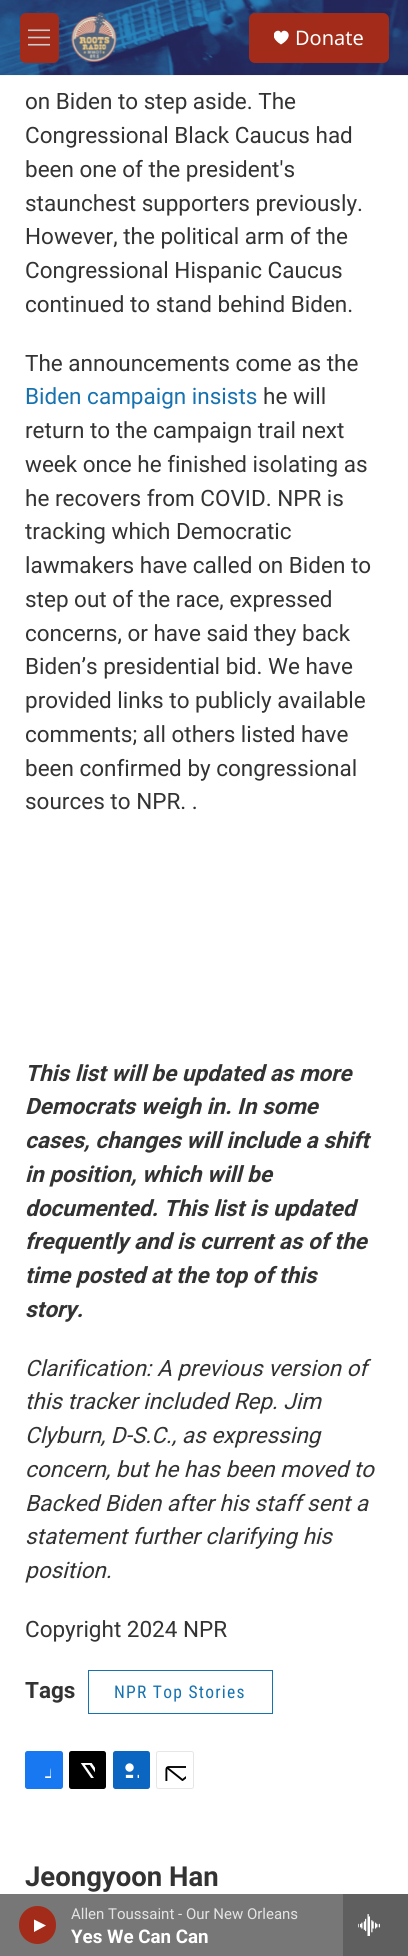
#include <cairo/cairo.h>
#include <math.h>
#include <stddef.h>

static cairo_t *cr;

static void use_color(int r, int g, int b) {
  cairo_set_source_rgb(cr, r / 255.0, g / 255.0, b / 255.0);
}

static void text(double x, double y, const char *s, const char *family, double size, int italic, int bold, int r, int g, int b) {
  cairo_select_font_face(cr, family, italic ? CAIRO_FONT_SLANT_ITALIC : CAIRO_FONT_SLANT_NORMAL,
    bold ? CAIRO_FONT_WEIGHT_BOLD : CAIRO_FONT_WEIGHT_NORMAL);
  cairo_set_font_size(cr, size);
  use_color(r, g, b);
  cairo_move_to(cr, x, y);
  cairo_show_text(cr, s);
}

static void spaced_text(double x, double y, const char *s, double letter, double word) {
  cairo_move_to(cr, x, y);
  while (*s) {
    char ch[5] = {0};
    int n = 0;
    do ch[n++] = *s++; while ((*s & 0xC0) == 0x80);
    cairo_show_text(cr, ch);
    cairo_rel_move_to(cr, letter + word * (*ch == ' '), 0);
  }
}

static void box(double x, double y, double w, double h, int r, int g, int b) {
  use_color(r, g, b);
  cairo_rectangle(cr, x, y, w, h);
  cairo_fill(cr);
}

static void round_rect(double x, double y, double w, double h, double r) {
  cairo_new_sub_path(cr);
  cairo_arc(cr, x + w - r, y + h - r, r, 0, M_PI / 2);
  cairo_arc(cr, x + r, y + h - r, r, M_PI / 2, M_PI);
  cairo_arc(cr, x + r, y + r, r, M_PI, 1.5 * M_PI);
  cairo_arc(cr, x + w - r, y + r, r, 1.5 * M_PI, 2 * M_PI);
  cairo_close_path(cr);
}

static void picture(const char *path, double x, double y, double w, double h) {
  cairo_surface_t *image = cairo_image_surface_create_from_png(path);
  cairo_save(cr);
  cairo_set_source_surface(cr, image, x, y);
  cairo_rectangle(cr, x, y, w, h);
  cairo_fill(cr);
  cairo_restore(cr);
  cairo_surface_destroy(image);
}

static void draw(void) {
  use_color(255, 255, 255);
  cairo_paint(cr);
  box(0, 75, 408, 1, 245, 245, 245);
  picture("img_01.png", 0, 0, 408, 75);
  use_color(163, 43, 25);
  round_rect(20, 13, 39, 50, 6);
  cairo_fill(cr);
  picture("img_02.png", 28, 29, 22, 17);
  picture("img_03.png", 71, 12, 46, 50);
  round_rect(249, 13, 140, 50, 6);
  cairo_fill(cr);
  cairo_save(cr);
  cairo_rectangle(cr, 274, 30, 15, 15);
  cairo_clip(cr);
  use_color(255, 255, 255);
  cairo_new_path(cr);
  cairo_move_to(cr, 281, 33);
  cairo_curve_to(cr, 279, 26.5, 265.5, 35, 281, 44.5);
  cairo_curve_to(cr, 297, 35, 283.5, 26.5, 281, 33);
  cairo_close_path(cr);
  cairo_fill(cr);
  cairo_restore(cr);
  box(0, 1894, 343, 62, 119, 119, 119);
  use_color(163, 43, 25);
  round_rect(19, 1906, 37, 38, 18.5);
  cairo_fill(cr);
  use_color(255, 255, 255);
  cairo_new_path(cr);
  cairo_move_to(cr, 34, 1919.5);
  cairo_line_to(cr, 46, 1925.5);
  cairo_line_to(cr, 34, 1932);
  cairo_close_path(cr);
  cairo_fill(cr);
  box(343, 1894, 65, 62, 95, 95, 95);
  picture("img_04.png", 358, 1914, 22, 22);
  cairo_rectangle(cr, 88.5, 1670.5, 184, 43);
  use_color(23, 114, 176);
  cairo_set_line_width(cr, 1);
  cairo_stroke(cr);
  use_color(23, 120, 242);
  round_rect(25, 1751, 38, 38, 2.5);
  cairo_fill(cr);
  picture("img_05.png", 45, 1768, 6, 10);
  use_color(0, 0, 0);
  round_rect(69, 1751, 37, 38, 2.5);
  cairo_fill(cr);
  picture("img_06.png", 80, 1763, 15, 15);
  use_color(10, 102, 193);
  round_rect(113, 1751, 37, 38, 2.5);
  cairo_fill(cr);
  picture("img_07.png", 125, 1763, 14, 15);
  round_rect(156.5, 1751.5, 37, 37, 2);
  use_color(230, 230, 230);
  cairo_stroke(cr);
  picture("img_08.png", 165, 1766, 21, 15);
  text(295, 45, "Donate", "Noto Sans", 20, 0, 0, 255, 255, 255);
  text(71, 1919, "Allen Toussaint - Our New Orleans", "Roboto", 15, 0, 0, 228, 228, 228);
  text(71, 1943, "Yes We Can Can", "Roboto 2", 18.75, 0, 1, 255, 255, 255);
  text(25, 109, "on Biden to step aside. The", "Roboto", 22.5, 0, 0, 51, 51, 51);
  text(25, 143, "Congressional Black Caucus had", "Roboto", 22.5, 0, 0, 51, 51, 51);
  text(25, 177, "been one of the president's", "Roboto", 22.5, 0, 0, 51, 51, 51);
  text(25, 211, "staunchest supporters previously.", "Roboto", 22.5, 0, 0, 51, 51, 51);
  text(25, 244, "However, the political arm of the", "Roboto", 22.5, 0, 0, 51, 51, 51);
  text(25, 278, "Congressional Hispanic Caucus", "Roboto", 22.5, 0, 0, 51, 51, 51);
  text(25, 312, "continued to stand behind Biden.", "Roboto", 22.5, 0, 0, 51, 51, 51);
  text(25, 371, "The announcements come as the", "Roboto", 22.5, 0, 0, 51, 51, 51);
  text(25, 404, "Biden campaign insists", "Roboto", 22.5, 0, 0, 23, 114, 176);
  text(263, 404, "he will", "Roboto", 22.5, 0, 0, 51, 51, 51);
  text(25, 438, "return to the campaign trail next", "Roboto", 22.5, 0, 0, 51, 51, 51);
  text(25, 472, "week once he finished isolating as", "Roboto", 22.5, 0, 0, 51, 51, 51);
  text(25, 506, "he recovers from COVID. NPR is", "Roboto", 22.5, 0, 0, 51, 51, 51);
  text(25, 539, "tracking which Democratic", "Roboto", 22.5, 0, 0, 51, 51, 51);
  text(25, 573, "lawmakers have called on Biden to", "Roboto", 22.5, 0, 0, 51, 51, 51);
  text(25, 607, "step out of the race, expressed", "Roboto", 22.5, 0, 0, 51, 51, 51);
  text(25, 641, "concerns, or have said they back", "Roboto", 22.5, 0, 0, 51, 51, 51);
  text(25, 674, "Biden’s presidential bid. We have", "Roboto", 22.5, 0, 0, 51, 51, 51);
  text(25, 708, "provided links to publicly available", "Roboto", 22.5, 0, 0, 51, 51, 51);
  text(25, 742, "comments; all others listed have", "Roboto", 22.5, 0, 0, 51, 51, 51);
  text(25, 776, "been confirmed by congressional", "Roboto", 22.5, 0, 0, 51, 51, 51);
  text(25, 809, "sources to NPR. .", "Roboto", 22.5, 0, 0, 51, 51, 51);
  text(25, 1081, "This list will be updated as more", "Roboto", 22.5, 1, 1, 51, 51, 51);
  text(25, 1114, "Democrats weigh in. In some", "Roboto", 22.5, 1, 1, 51, 51, 51);
  text(25, 1148, "cases, changes will include a shift", "Roboto", 22.5, 1, 1, 51, 51, 51);
  text(25, 1182, "in position, which will be", "Roboto", 22.5, 1, 1, 51, 51, 51);
  text(25, 1216, "documented. This list is updated", "Roboto", 22.5, 1, 1, 51, 51, 51);
  text(25, 1249, "frequently and is current as of the", "Roboto", 22.5, 1, 1, 51, 51, 51);
  text(25, 1283, "time posted at the top of this", "Roboto", 22.5, 1, 1, 51, 51, 51);
  text(25, 1317, "story.", "Roboto", 22.5, 1, 1, 51, 51, 51);
  text(25, 1376, "Clarification: A previous version of", "Roboto", 22.5, 1, 0, 51, 51, 51);
  text(25, 1409, "this tracker included Rep. Jim", "Roboto", 22.5, 1, 0, 51, 51, 51);
  text(25, 1443, "Clyburn, D-S.C., as expressing", "Roboto", 22.5, 1, 0, 51, 51, 51);
  text(25, 1477, "concern, but he has been moved to", "Roboto", 22.5, 1, 0, 51, 51, 51);
  text(25, 1511, "Backed Biden after his staff sent a", "Roboto", 22.5, 1, 0, 51, 51, 51);
  text(25, 1544, "statement further clarifying his", "Roboto", 22.5, 1, 0, 51, 51, 51);
  text(25, 1578, "position.", "Roboto", 22.5, 1, 0, 51, 51, 51);
  text(25, 1637, "Copyright 2024 NPR", "Roboto", 22.5, 0, 0, 51, 51, 51);
  text(25, 1698, "Tags", "Roboto", 22.5, 0, 1, 51, 51, 51);
  cairo_select_font_face(cr, "Roboto Condensed", CAIRO_FONT_SLANT_NORMAL, CAIRO_FONT_WEIGHT_NORMAL);
  cairo_set_font_size(cr, 17.5);
  use_color(23, 114, 176);
  spaced_text(114, 1698, "NPR Top Stories", 1.25, 0);
  text(25, 1886, "Jeongyoon Han", "Roboto", 27.5, 0, 1, 51, 51, 51);
}

int main(void) {
  cairo_surface_t *surface = cairo_image_surface_create(CAIRO_FORMAT_RGB24, 408, 1956);
  cr = cairo_create(surface);
  cairo_font_options_t *options = cairo_font_options_create();
  cairo_font_options_set_hint_metrics(options, CAIRO_HINT_METRICS_OFF);
  cairo_font_options_set_hint_style(options, CAIRO_HINT_STYLE_NONE);
  cairo_set_font_options(cr, options);
  cairo_set_miter_limit(cr, 4);
  draw();
  cairo_surface_write_to_png(surface, "out.png");
  cairo_font_options_destroy(options);
  cairo_destroy(cr);
  cairo_surface_destroy(surface);
  return 0;
}
